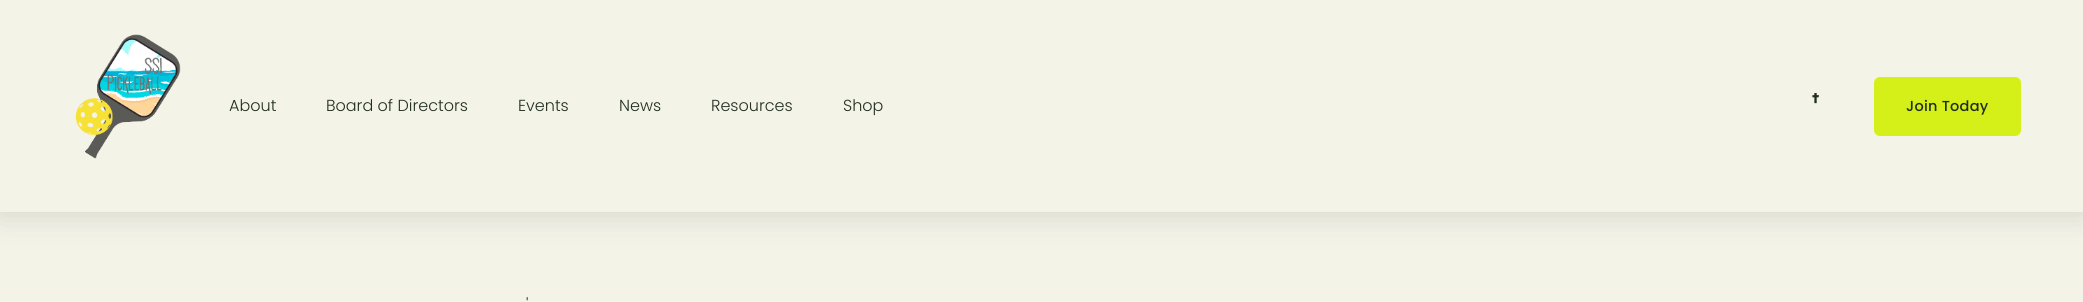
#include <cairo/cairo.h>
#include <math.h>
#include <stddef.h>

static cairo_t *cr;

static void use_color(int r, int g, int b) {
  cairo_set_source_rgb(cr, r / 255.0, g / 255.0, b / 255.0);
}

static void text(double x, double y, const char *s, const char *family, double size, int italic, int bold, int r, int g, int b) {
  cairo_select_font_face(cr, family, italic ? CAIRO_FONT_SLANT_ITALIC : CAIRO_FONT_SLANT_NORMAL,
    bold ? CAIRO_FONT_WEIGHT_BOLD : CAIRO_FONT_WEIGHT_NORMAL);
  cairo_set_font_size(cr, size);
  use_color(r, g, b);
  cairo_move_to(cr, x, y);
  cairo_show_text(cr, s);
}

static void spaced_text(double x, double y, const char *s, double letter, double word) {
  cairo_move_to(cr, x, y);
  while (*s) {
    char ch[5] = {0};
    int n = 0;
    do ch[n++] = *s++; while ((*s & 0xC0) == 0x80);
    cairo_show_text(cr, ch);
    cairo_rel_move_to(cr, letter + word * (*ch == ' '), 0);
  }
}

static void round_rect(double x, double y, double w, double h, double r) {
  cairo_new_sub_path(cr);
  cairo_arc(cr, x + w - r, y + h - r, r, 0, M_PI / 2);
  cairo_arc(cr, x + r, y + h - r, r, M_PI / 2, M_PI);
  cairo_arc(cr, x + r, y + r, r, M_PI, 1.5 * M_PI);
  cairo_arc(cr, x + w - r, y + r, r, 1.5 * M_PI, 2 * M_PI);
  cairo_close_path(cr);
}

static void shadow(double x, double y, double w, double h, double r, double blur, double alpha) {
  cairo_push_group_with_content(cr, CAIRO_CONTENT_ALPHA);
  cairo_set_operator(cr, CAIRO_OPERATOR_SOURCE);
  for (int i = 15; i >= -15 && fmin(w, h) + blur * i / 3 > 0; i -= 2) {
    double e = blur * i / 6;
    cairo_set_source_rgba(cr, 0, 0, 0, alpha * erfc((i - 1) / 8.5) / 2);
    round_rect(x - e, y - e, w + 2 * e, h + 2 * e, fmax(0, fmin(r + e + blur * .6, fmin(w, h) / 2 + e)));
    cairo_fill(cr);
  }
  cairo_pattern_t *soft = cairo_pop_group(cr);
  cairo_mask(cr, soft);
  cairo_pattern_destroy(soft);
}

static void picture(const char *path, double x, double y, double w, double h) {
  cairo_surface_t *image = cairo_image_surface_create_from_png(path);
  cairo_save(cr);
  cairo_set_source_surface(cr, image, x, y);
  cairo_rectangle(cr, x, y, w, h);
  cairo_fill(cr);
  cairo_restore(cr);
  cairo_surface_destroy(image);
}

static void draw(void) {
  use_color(244, 243, 232);
  cairo_paint(cr);
  cairo_save(cr);
  cairo_rectangle(cr, 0, 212, 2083, 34);
  cairo_clip(cr);
  use_color(212, 213, 202);
  shadow(0, 3, 2083, 212, 0, 15, 1);
  cairo_restore(cr);
  picture("img_01.png", 75, 34, 106, 125);
  picture("img_02.png", 1812, 93, 7, 11);
  use_color(213, 239, 25);
  round_rect(1874, 77, 147, 59, 6);
  cairo_fill(cr);
  text(229, 111, "About", "Poppins Light", 16, 0, 0, 33, 46, 33);
  text(326, 111, "Board of Directors", "Poppins Light", 16, 0, 0, 33, 46, 33);
  text(518, 111, "Events", "Poppins Light", 16, 0, 0, 33, 46, 33);
  text(619, 111, "News", "Poppins Light", 16, 0, 0, 33, 46, 33);
  text(711, 111, "Resources", "Poppins Light", 16, 0, 0, 33, 46, 33);
  text(843, 111, "Shop", "Poppins Light", 16, 0, 0, 33, 46, 33);
  cairo_select_font_face(cr, "Poppins Medium", CAIRO_FONT_SLANT_NORMAL, CAIRO_FONT_WEIGHT_NORMAL);
  cairo_set_font_size(cr, 14.5);
  spaced_text(1906, 111, "Join Today", 0.25, 0);
  text(526, 310, "'", "Poppins Light", 16, 0, 0, 33, 46, 33);
}

int main(void) {
  cairo_surface_t *surface = cairo_image_surface_create(CAIRO_FORMAT_RGB24, 2083, 302);
  cr = cairo_create(surface);
  cairo_font_options_t *options = cairo_font_options_create();
  cairo_font_options_set_hint_metrics(options, CAIRO_HINT_METRICS_OFF);
  cairo_font_options_set_hint_style(options, CAIRO_HINT_STYLE_NONE);
  cairo_set_font_options(cr, options);
  cairo_set_miter_limit(cr, 4);
  draw();
  cairo_surface_write_to_png(surface, "out.png");
  cairo_font_options_destroy(options);
  cairo_destroy(cr);
  cairo_surface_destroy(surface);
  return 0;
}
